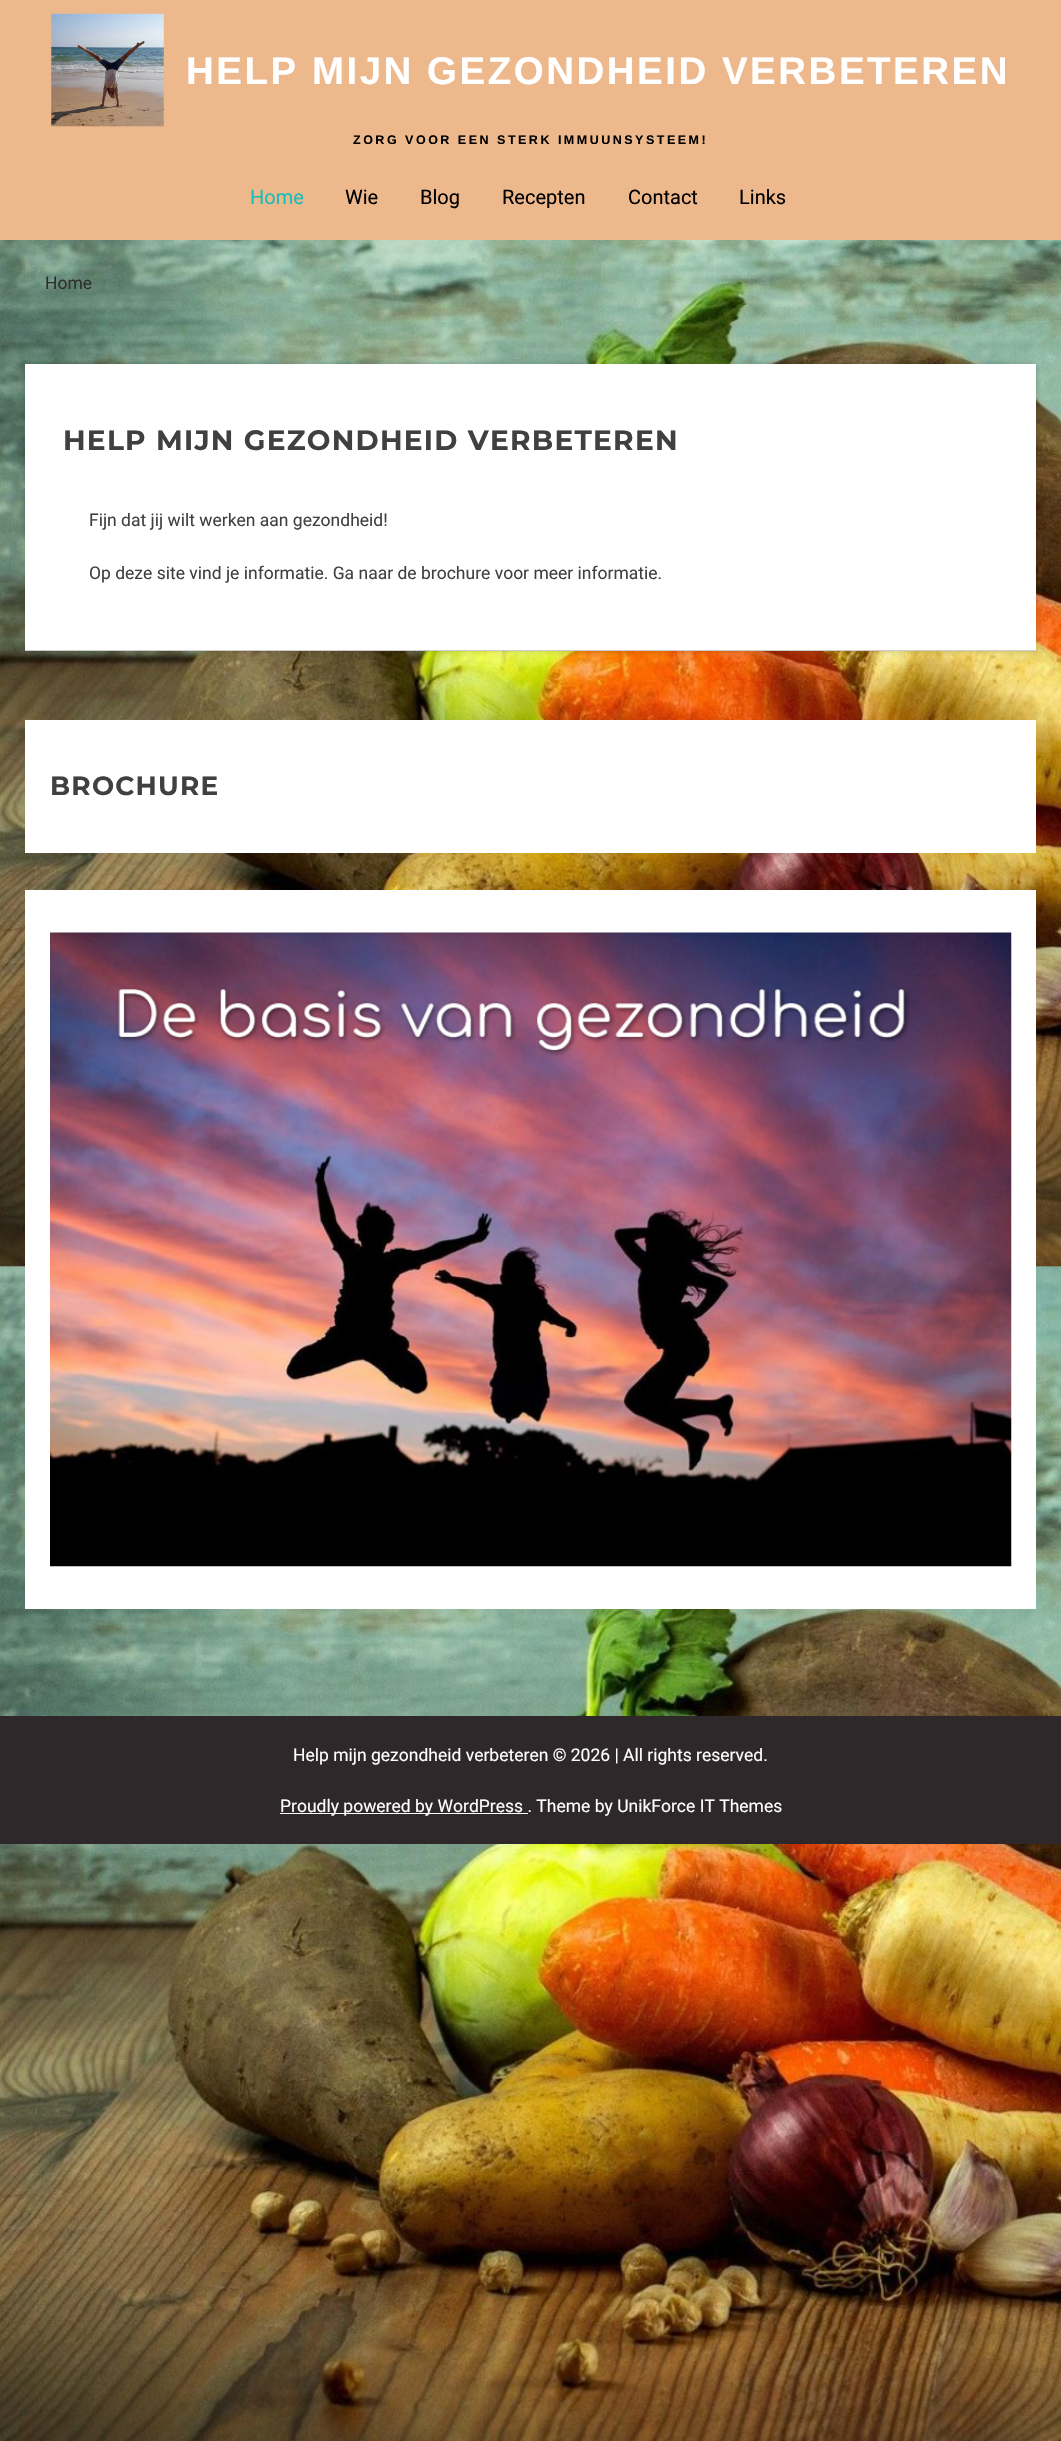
void draw(SkCanvas* canvas) {
    SkPaint paint;
    paint.setAntiAlias(true);
    auto spacedText = [&](const char* s, float x, float y, const SkFont& font, const SkPaint& ink, float letter, float word) {
        std::vector<SkGlyphID> glyphs(font.countText(s, strlen(s), SkTextEncoding::kUTF8));
        std::vector<float> xs(glyphs.size());
        font.textToGlyphs(s, strlen(s), SkTextEncoding::kUTF8, glyphs);
        font.getXPos(glyphs, xs, x);
        float extra = 0;
        for (size_t i = 0; i < glyphs.size(); i++) {
            xs[i] += extra;
            extra += letter + word * (glyphs[i] == font.unicharToGlyph(' '));
        }
        canvas->drawTextBlob(SkTextBlob::MakeFromPosHGlyphs(glyphs, xs, y, font), 0, 0, ink);
    };
    canvas->clear(0xFFFFFFFF);
    canvas->drawImageRect(SkImages::DeferredFromEncodedData(SkData::MakeFromFileName("img1.png")), SkRect::MakeXYWH(0, 240, 1061, 2201), SkSamplingOptions());
    paint.setColor(0xFFEDB88B);
    canvas->drawRect(SkRect::MakeXYWH(0, 0, 1061, 240), paint);
    canvas->drawImageRect(SkImages::DeferredFromEncodedData(SkData::MakeFromFileName("img2.png")), SkRect::MakeXYWH(51, 13, 113, 114), SkSamplingOptions());
    SkFont font1(fontMgr->matchFamilyStyle("Liberation Sans", SkFontStyle::Bold()), 38.5f);
    font1.setSubpixel(true);
    paint.setColor(0xFFFFFFFF);
    spacedText("HELP MIJN GEZONDHEID VERBETEREN", 186, 84, font1, paint, 2.5f, 0);
    SkFont font2(fontMgr->matchFamilyStyle("Liberation Sans", SkFontStyle::Bold()), 12.5f);
    font2.setSubpixel(true);
    paint.setColor(0xFF000000);
    spacedText("ZORG VOOR EEN STERK IMMUUNSYSTEEM!", 353, 144, font2, paint, 2.5f, 0);
    SkFont font3(fontMgr->matchFamilyStyle("Roboto", SkFontStyle::Normal()), 20);
    font3.setSubpixel(true);
    paint.setColor(0xFF17BEBB);
    canvas->drawString("Home", 250, 204, font3, paint);
    paint.setColor(0xFF000000);
    canvas->drawString("Wie", 345, 204, font3, paint);
    canvas->drawString("Blog", 420, 204, font3, paint);
    canvas->drawString("Recepten", 502, 204, font3, paint);
    canvas->drawString("Contact", 628, 204, font3, paint);
    canvas->drawString("Links", 739, 204, font3, paint);
    SkFont font4(fontMgr->matchFamilyStyle("Roboto", SkFontStyle::Normal()), 17.5f);
    font4.setSubpixel(true);
    paint.setColor(0xFF2F2F2F);
    canvas->drawString("Home", 45, 289, font4, paint);
    paint.setColor(0x33000000);
    paint.setMaskFilter(SkMaskFilter::MakeBlur(kNormal_SkBlurStyle, 3));
    canvas->drawRect(SkRect::MakeXYWH(25, 364, 1011, 287), paint);
    paint.setMaskFilter(nullptr);
    paint.setColor(0xFFFFFFFF);
    canvas->drawRect(SkRect::MakeXYWH(25, 364, 1011, 286), paint);
    paint.setColor(0xFFCCCCCC);
    canvas->drawRect(SkRect::MakeXYWH(25, 650, 1011, 1), paint);
    SkFont font5(fontMgr->matchFamilyStyle("Montserrat", SkFontStyle::Bold()), 28);
    font5.setSubpixel(true);
    paint.setColor(0xFF404040);
    spacedText("HELP MIJN GEZONDHEID VERBETEREN", 63, 450, font5, paint, 1.25f, 0);
    canvas->drawString("Fijn dat jij wilt werken aan gezondheid!", 89, 526, font4, paint);
    canvas->drawString("Op deze site vind je informatie. Ga naar de brochure voor meer informatie.", 89, 579, font4, paint);
    paint.setColor(0xFFFFFFFF);
    canvas->drawRect(SkRect::MakeXYWH(25, 720, 1011, 133), paint);
    SkFont font6(fontMgr->matchFamilyStyle("Montserrat", SkFontStyle::Bold()), 26.25f);
    font6.setSubpixel(true);
    paint.setColor(0xFF404040);
    spacedText("BROCHURE", 50, 795, font6, paint, 1.25f, 0);
    paint.setColor(0xFFFFFFFF);
    canvas->drawRect(SkRect::MakeXYWH(25, 890, 1011, 719), paint);
    canvas->drawImageRect(SkImages::DeferredFromEncodedData(SkData::MakeFromFileName("img3.png")), SkRect::MakeXYWH(50, 932, 962, 635), SkSamplingOptions());
    paint.setColor(0xFF2E282A);
    canvas->drawRect(SkRect::MakeXYWH(0, 1716, 1061, 128), paint);
    paint.setColor(0xFFFFFFFF);
    canvas->drawString("Help mijn gezondheid verbeteren © 2026 | All rights reserved.", 293, 1761, font4, paint);
    canvas->drawRect(SkRect::MakeXYWH(280, 1813, 248, 1), paint);
    canvas->drawString("Proudly powered by WordPress . Theme by UnikForce IT Themes", 280, 1812, font4, paint);
}
